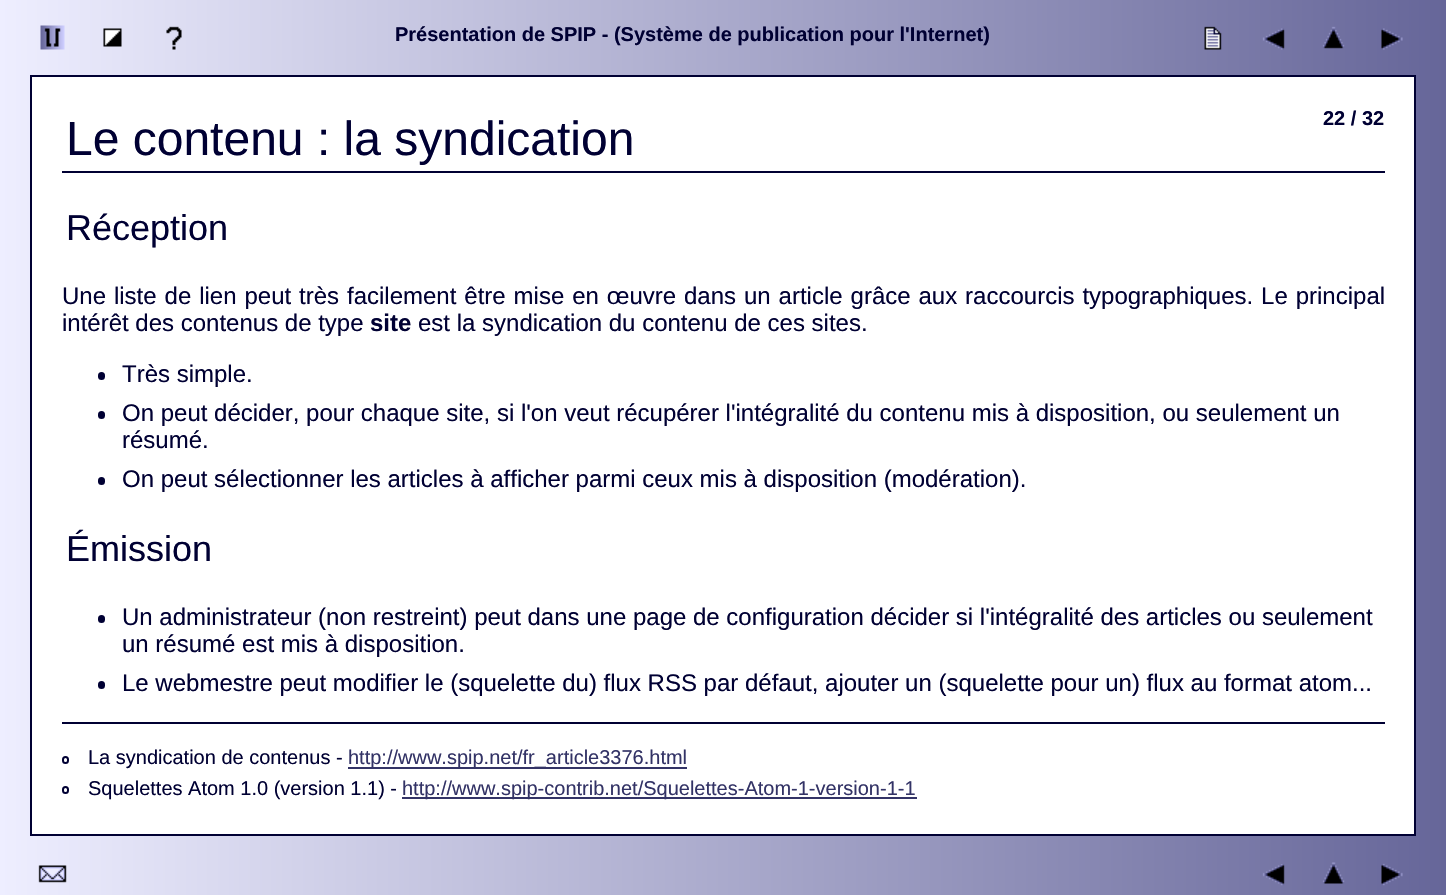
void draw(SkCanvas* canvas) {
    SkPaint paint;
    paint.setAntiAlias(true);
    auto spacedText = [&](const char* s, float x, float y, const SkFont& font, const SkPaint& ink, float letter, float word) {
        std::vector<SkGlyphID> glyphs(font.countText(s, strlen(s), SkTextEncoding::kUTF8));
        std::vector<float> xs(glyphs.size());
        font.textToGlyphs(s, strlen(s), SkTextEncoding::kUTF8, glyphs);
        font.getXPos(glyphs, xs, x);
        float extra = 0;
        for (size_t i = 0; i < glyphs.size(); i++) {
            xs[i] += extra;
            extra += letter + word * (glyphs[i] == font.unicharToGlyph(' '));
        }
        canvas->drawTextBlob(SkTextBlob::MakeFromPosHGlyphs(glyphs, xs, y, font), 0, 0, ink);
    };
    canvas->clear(0xFFFFFFFF);
    {
        const SkColor colors[] = {0xFFEEEEFF, 0xFF666699};
        const float stops[] = {0, 1};
        const SkPoint ends[] = {{0, 458}, {1446, 458}};
        paint.setShader(SkGradientShader::MakeLinear(ends, colors, stops, 2, SkTileMode::kClamp));
        paint.setAlpha(255);
    }
    canvas->drawRect(SkRect::MakeXYWH(0, 0, 1446, 895), paint);
    canvas->drawImageRect(SkImages::DeferredFromEncodedData(SkData::MakeFromFileName("img1.png")), SkRect::MakeXYWH(40, 25, 25, 25), SkSamplingOptions());
    canvas->drawImageRect(SkImages::DeferredFromEncodedData(SkData::MakeFromFileName("img2.png")), SkRect::MakeXYWH(103, 28, 19, 19), SkSamplingOptions());
    canvas->drawImageRect(SkImages::DeferredFromEncodedData(SkData::MakeFromFileName("img3.png")), SkRect::MakeXYWH(166, 26, 16, 24), SkSamplingOptions());
    SkFont font1(fontMgr->matchFamilyStyle("Liberation Sans", SkFontStyle::Bold()), 20);
    font1.setSubpixel(true);
    paint.setShader(nullptr);
    paint.setColor(0xFF000033);
    canvas->drawString("Présentation de SPIP - (Système de publication pour l'Internet)", 395, 41, font1, paint);
    canvas->drawImageRect(SkImages::DeferredFromEncodedData(SkData::MakeFromFileName("img4.png")), SkRect::MakeXYWH(1204, 26, 18, 24), SkSamplingOptions());
    canvas->drawImageRect(SkImages::DeferredFromEncodedData(SkData::MakeFromFileName("img5.png")), SkRect::MakeXYWH(1262, 28, 23, 22), SkSamplingOptions());
    canvas->drawImageRect(SkImages::DeferredFromEncodedData(SkData::MakeFromFileName("img6.png")), SkRect::MakeXYWH(1322, 26, 23, 23), SkSamplingOptions());
    canvas->drawImageRect(SkImages::DeferredFromEncodedData(SkData::MakeFromFileName("img7.png")), SkRect::MakeXYWH(1381, 28, 22, 22), SkSamplingOptions());
    paint.setColor(0xFFFFFFFF);
    canvas->drawRect(SkRect::MakeXYWH(31, 76, 1384, 759), paint);
    paint.setStyle(SkPaint::kStroke_Style);
    paint.setStrokeWidth(2);
    paint.setColor(0xFF000033);
    canvas->drawRect(SkRect::MakeXYWH(31, 76, 1384, 759), paint);
    paint.setStyle(SkPaint::kFill_Style);
    canvas->drawString("22 / 32", 1323, 125, font1, paint);
    canvas->drawRect(SkRect::MakeXYWH(62, 171, 1323, 2), paint);
    SkFont font2(fontMgr->matchFamilyStyle("Liberation Sans", SkFontStyle::Normal()), 48);
    font2.setSubpixel(true);
    canvas->drawString("Le contenu : la syndication", 66, 155, font2, paint);
    SkFont font3(fontMgr->matchFamilyStyle("Liberation Sans", SkFontStyle::Normal()), 36);
    font3.setSubpixel(true);
    canvas->drawString("Réception", 66, 240, font3, paint);
    SkFont font4(fontMgr->matchFamilyStyle("Liberation Sans", SkFontStyle::Normal()), 24);
    font4.setSubpixel(true);
    spacedText("Une liste de lien peut très facilement être mise en œuvre dans un article grâce aux raccourcis typographiques. Le principal", 62, 304, font4, paint, 0, 1.25f);
    canvas->drawString("intérêt des contenus de type", 62, 331, font4, paint);
    SkFont font5(fontMgr->matchFamilyStyle("Liberation Sans", SkFontStyle::Bold()), 24);
    font5.setSubpixel(true);
    canvas->drawString("site", 370, 331, font5, paint);
    canvas->drawString("est la syndication du contenu de ces sites.", 418, 331, font4, paint);
    canvas->drawRoundRect(SkRect::MakeXYWH(98, 372, 7, 8), 3.5f, 3.5f, paint);
    canvas->drawString("Très simple.", 122, 382, font4, paint);
    canvas->drawRoundRect(SkRect::MakeXYWH(98, 411, 7, 8), 3.5f, 3.5f, paint);
    canvas->drawString("On peut décider, pour chaque site, si l'on veut récupérer l'intégralité du contenu mis à disposition, ou seulement un", 122, 421, font4, paint);
    canvas->drawString("résumé.", 122, 448, font4, paint);
    canvas->drawRoundRect(SkRect::MakeXYWH(98, 477, 7, 8), 3.5f, 3.5f, paint);
    canvas->drawString("On peut sélectionner les articles à afficher parmi ceux mis à disposition (modération).", 122, 487, font4, paint);
    canvas->drawString("Émission", 66, 561, font3, paint);
    canvas->drawRoundRect(SkRect::MakeXYWH(98, 615, 7, 8), 3.5f, 3.5f, paint);
    canvas->drawString("Un administrateur (non restreint) peut dans une page de configuration décider si l'intégralité des articles ou seulement", 122, 625, font4, paint);
    canvas->drawString("un résumé est mis à disposition.", 122, 652, font4, paint);
    canvas->drawRoundRect(SkRect::MakeXYWH(98, 681, 7, 8), 3.5f, 3.5f, paint);
    canvas->drawString("Le webmestre peut modifier le (squelette du) flux RSS par défaut, ajouter un (squelette pour un) flux au format atom...", 122, 691, font4, paint);
    canvas->drawRect(SkRect::MakeXYWH(62, 722, 1323, 2), paint);
    paint.setStyle(SkPaint::kStroke_Style);
    canvas->drawRoundRect(SkRect::MakeXYWH(63, 757, 5, 6), 2.5f, 2.5f, paint);
    SkFont font6(fontMgr->matchFamilyStyle("Liberation Sans", SkFontStyle::Normal()), 20);
    font6.setSubpixel(true);
    paint.setStyle(SkPaint::kFill_Style);
    canvas->drawString("La syndication de contenus -", 88, 764, font6, paint);
    paint.setColor(0xFF333366);
    canvas->drawRect(SkRect::MakeXYWH(348, 767, 339, 2), paint);
    canvas->drawString("http://www.spip.net/fr_article3376.html", 348, 764, font6, paint);
    paint.setStyle(SkPaint::kStroke_Style);
    paint.setColor(0xFF000033);
    canvas->drawRoundRect(SkRect::MakeXYWH(63, 787, 5, 6), 2.5f, 2.5f, paint);
    paint.setStyle(SkPaint::kFill_Style);
    canvas->drawString("Squelettes Atom 1.0 (version 1.1) -", 88, 795, font6, paint);
    paint.setColor(0xFF333366);
    canvas->drawRect(SkRect::MakeXYWH(402, 797, 515, 2), paint);
    canvas->drawString("http://www.spip-contrib.net/Squelettes-Atom-1-version-1-1", 402, 795, font6, paint);
    canvas->drawImageRect(SkImages::DeferredFromEncodedData(SkData::MakeFromFileName("img8.png")), SkRect::MakeXYWH(38, 865, 29, 18), SkSamplingOptions());
    canvas->drawImageRect(SkImages::DeferredFromEncodedData(SkData::MakeFromFileName("img9.png")), SkRect::MakeXYWH(1262, 864, 23, 22), SkSamplingOptions());
    canvas->drawImageRect(SkImages::DeferredFromEncodedData(SkData::MakeFromFileName("img10.png")), SkRect::MakeXYWH(1322, 862, 23, 22), SkSamplingOptions());
    canvas->drawImageRect(SkImages::DeferredFromEncodedData(SkData::MakeFromFileName("img11.png")), SkRect::MakeXYWH(1381, 863, 22, 23), SkSamplingOptions());
}
